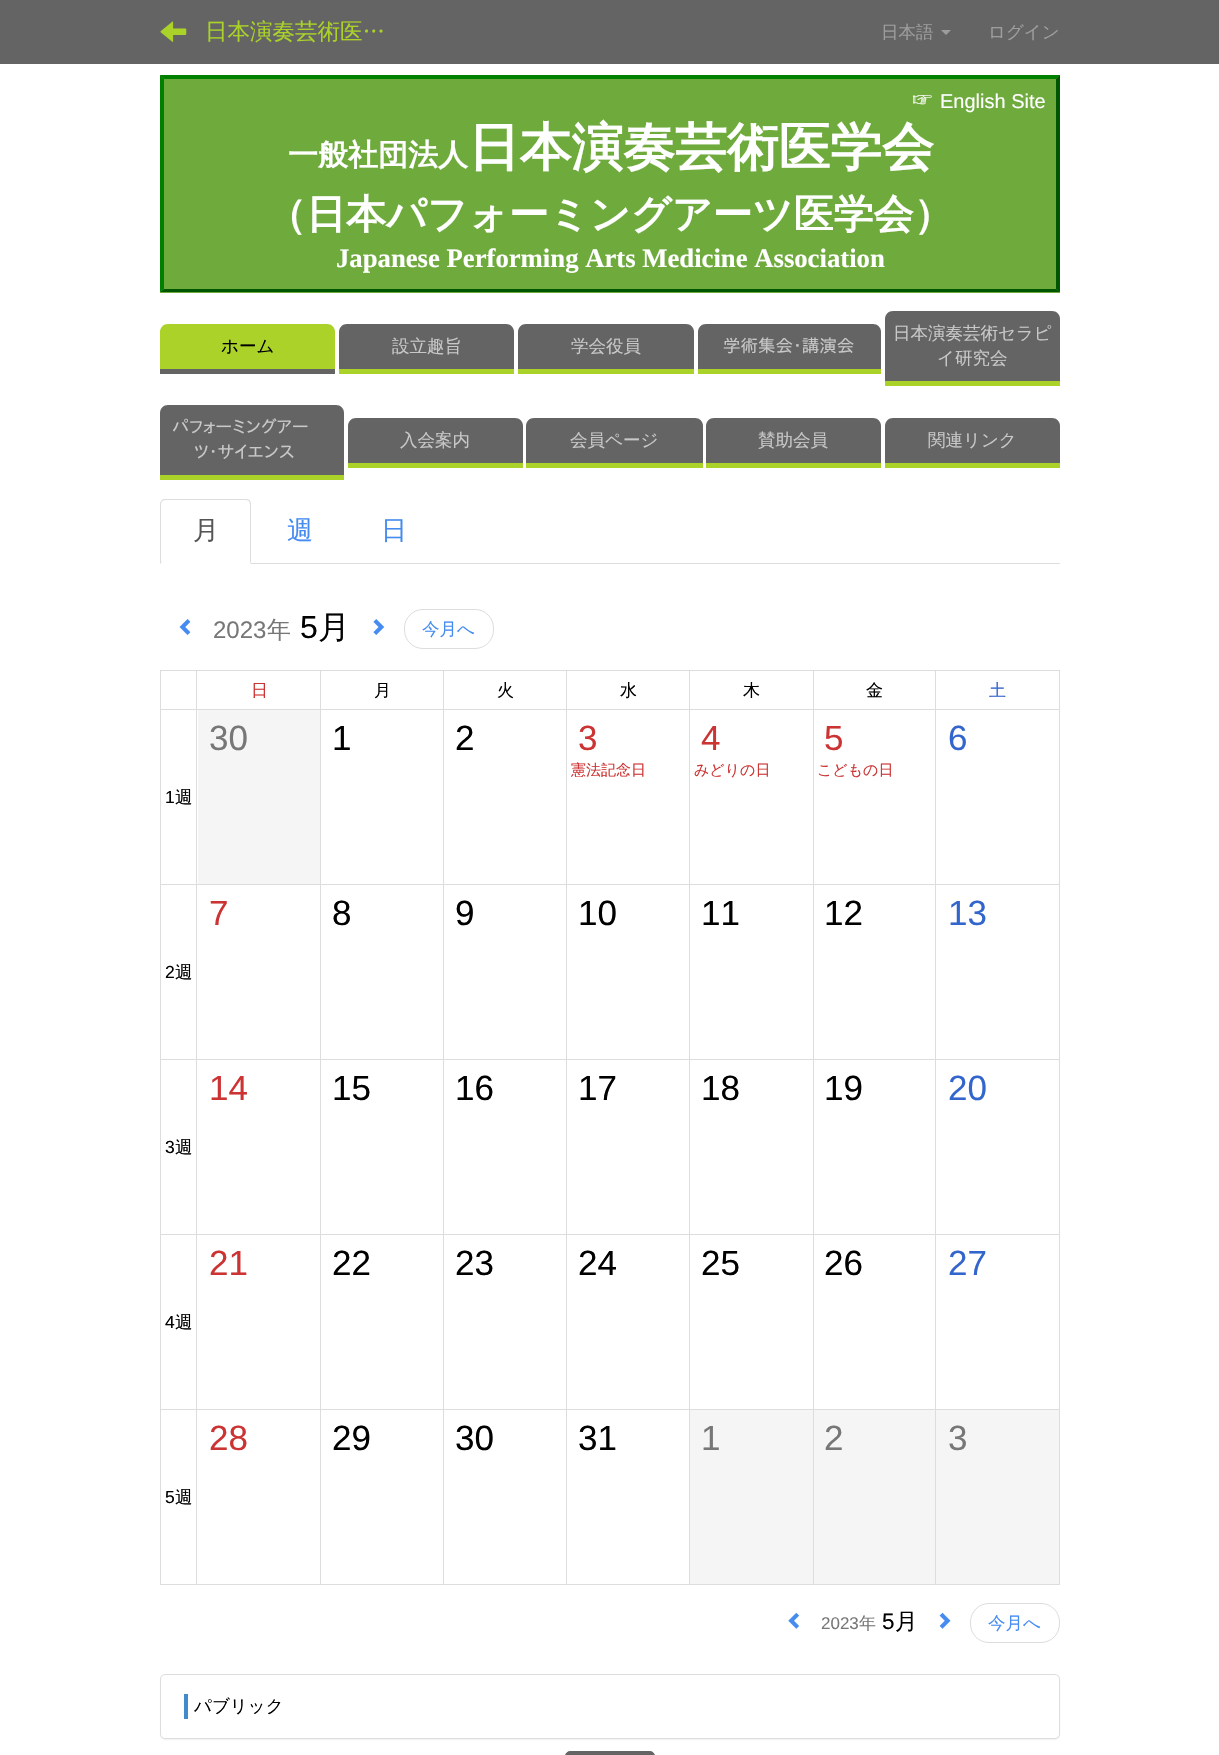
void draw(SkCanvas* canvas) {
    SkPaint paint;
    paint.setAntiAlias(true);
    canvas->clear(0xFFFFFFFF);
    paint.setColor(0xFF646464);
    canvas->drawRect(SkRect::MakeXYWH(0, 0, 1219, 64), paint);
    canvas->drawImageRect(SkImages::DeferredFromEncodedData(SkData::MakeFromFileName("img1.png")), SkRect::MakeXYWH(160, 21, 27, 21), SkSamplingOptions());
    SkFont font1(fontMgr->matchFamilyStyle("WenQuanYi Zen Hei", SkFontStyle(500, SkFontStyle::kNormal_Width, SkFontStyle::kUpright_Slant)), 22.5f);
    font1.setSubpixel(true);
    paint.setColor(0xFFAAD228);
    canvas->drawString("日本演奏芸術医…", 205, 39, font1, paint);
    SkFont font2(fontMgr->matchFamilyStyle("WenQuanYi Zen Hei", SkFontStyle(500, SkFontStyle::kNormal_Width, SkFontStyle::kUpright_Slant)), 17.5f);
    font2.setSubpixel(true);
    paint.setColor(0xFF9D9D9D);
    canvas->drawString("日本語", 881, 38, font2, paint);
    canvas->drawPath(SkPathBuilder().moveTo(941, 30).lineTo(951, 30).lineTo(946, 35).close().detach(), paint);
    canvas->drawString("ログイン", 988, 38, font2, paint);
    paint.setColor(0xFF6EAA3C);
    canvas->drawRect(SkRect::MakeXYWH(160, 75, 900, 218), paint);
    paint.setColor(0xFF008000);
    canvas->drawPath(SkPathBuilder().moveTo(160, 75).lineTo(1060, 75).lineTo(1056, 79).lineTo(164, 79).close().detach(), paint);
    paint.setColor(0xFF005500);
    canvas->drawPath(SkPathBuilder().moveTo(1060, 75).lineTo(1060, 292).lineTo(1056, 289).lineTo(1056, 79).close().detach(), paint);
    canvas->drawPath(SkPathBuilder().moveTo(1060, 292).lineTo(160, 292).lineTo(164, 289).lineTo(1056, 289).close().detach(), paint);
    paint.setColor(0xFF008000);
    canvas->drawPath(SkPathBuilder().moveTo(160, 292).lineTo(160, 75).lineTo(164, 79).lineTo(164, 289).close().detach(), paint);
    SkFont font3(fontMgr->matchFamilyStyle("WenQuanYi Zen Hei", SkFontStyle(500, SkFontStyle::kNormal_Width, SkFontStyle::kUpright_Slant)), 23);
    font3.setSubpixel(true);
    paint.setColor(0xFFFFFFFF);
    canvas->drawString("☞", 911, 108, font3, paint);
    SkFont font4(fontMgr->matchFamilyStyle("Liberation Sans", SkFontStyle::Normal()), 20);
    font4.setSubpixel(true);
    canvas->drawString("English Site", 940, 108, font4, paint);
    SkFont font5(fontMgr->matchFamilyStyle("WenQuanYi Zen Hei", SkFontStyle::Bold()), 30);
    font5.setSubpixel(true);
    canvas->drawString("一般社団法人", 288, 165, font5, paint);
    SkFont font6(fontMgr->matchFamilyStyle("WenQuanYi Zen Hei", SkFontStyle::Bold()), 51.75f);
    font6.setSubpixel(true);
    canvas->drawString("日本演奏芸術医学会", 468, 165, font6, paint);
    SkFont font7(fontMgr->matchFamilyStyle("WenQuanYi Zen Hei", SkFontStyle::Bold()), 40);
    font7.setSubpixel(true);
    canvas->drawString("（日本パフォーミングアーツ医学会）", 266, 228, font7, paint);
    SkFont font8(fontMgr->matchFamilyStyle("Liberation Serif", SkFontStyle::Bold()), 26.7f);
    font8.setSubpixel(true);
    canvas->drawString("Japanese Performing Arts Medicine Association", 336, 267, font8, paint);
    paint.setColor(0xFFAAD228);
    canvas->drawPath(SkPathBuilder().moveTo(168, 324).lineTo(327, 324).cubicTo(331.5f, 324, 335, 327.5f, 335, 332).lineTo(335, 374).lineTo(160, 374).lineTo(160, 332).cubicTo(160, 327.5f, 163.5f, 324, 168, 324).close().detach(), paint);
    paint.setColor(0xFF646464);
    canvas->drawRect(SkRect::MakeXYWH(160, 369, 175, 5), paint);
    paint.setColor(0xFF000000);
    canvas->drawString("ホーム", 221, 352, font2, paint);
    paint.setColor(0xFF646464);
    canvas->drawPath(SkPathBuilder().moveTo(347, 324).lineTo(506, 324).cubicTo(510.5f, 324, 514, 327.5f, 514, 332).lineTo(514, 374).lineTo(339, 374).lineTo(339, 332).cubicTo(339, 327.5f, 342.5f, 324, 347, 324).close().detach(), paint);
    paint.setColor(0xFFAAD228);
    canvas->drawRect(SkRect::MakeXYWH(339, 369, 175, 5), paint);
    paint.setColor(0xFFC8C8C8);
    canvas->drawString("設立趣旨", 392, 352, font2, paint);
    paint.setColor(0xFF646464);
    canvas->drawPath(SkPathBuilder().moveTo(526, 324).lineTo(686, 324).cubicTo(690.5f, 324, 694, 327.5f, 694, 332).lineTo(694, 374).lineTo(518, 374).lineTo(518, 332).cubicTo(518, 327.5f, 521.5f, 324, 526, 324).close().detach(), paint);
    paint.setColor(0xFFAAD228);
    canvas->drawRect(SkRect::MakeXYWH(518, 369, 176, 5), paint);
    paint.setColor(0xFFC8C8C8);
    canvas->drawString("学会役員", 571, 352, font2, paint);
    paint.setColor(0xFF646464);
    canvas->drawPath(SkPathBuilder().moveTo(706, 324).lineTo(873, 324).cubicTo(877.5f, 324, 881, 327.5f, 881, 332).lineTo(881, 374).lineTo(698, 374).lineTo(698, 332).cubicTo(698, 327.5f, 701.5f, 324, 706, 324).close().detach(), paint);
    paint.setColor(0xFFAAD228);
    canvas->drawRect(SkRect::MakeXYWH(698, 369, 183, 5), paint);
    SkFont font9(fontMgr->matchFamilyStyle("IPAPGothic", SkFontStyle::Normal()), 17.5f);
    font9.setSubpixel(true);
    paint.setColor(0xFFC8C8C8);
    canvas->drawString("学術集会･講演会", 723, 352, font9, paint);
    paint.setColor(0xFF646464);
    canvas->drawPath(SkPathBuilder().moveTo(893, 311).lineTo(1052, 311).cubicTo(1056.5f, 311, 1060, 314.5f, 1060, 319).lineTo(1060, 386).lineTo(885, 386).lineTo(885, 319).cubicTo(885, 314.5f, 888.5f, 311, 893, 311).close().detach(), paint);
    paint.setColor(0xFFAAD228);
    canvas->drawRect(SkRect::MakeXYWH(885, 381, 175, 5), paint);
    paint.setColor(0xFFC8C8C8);
    canvas->drawString("日本演奏芸術セラピ", 893, 339, font2, paint);
    canvas->drawString("イ研究会", 937, 364, font2, paint);
    paint.setColor(0xFF646464);
    canvas->drawPath(SkPathBuilder().moveTo(168, 405).lineTo(336, 405).cubicTo(340.5f, 405, 344, 408.5f, 344, 413).lineTo(344, 480).lineTo(160, 480).lineTo(160, 413).cubicTo(160, 408.5f, 163.5f, 405, 168, 405).close().detach(), paint);
    paint.setColor(0xFFAAD228);
    canvas->drawRect(SkRect::MakeXYWH(160, 475, 184, 5), paint);
    paint.setColor(0xFFC8C8C8);
    canvas->drawString("パフォーミングアー", 172, 433, font9, paint);
    canvas->drawString("ツ･サイエンス", 194, 458, font9, paint);
    paint.setColor(0xFF646464);
    canvas->drawPath(SkPathBuilder().moveTo(356, 418).lineTo(515, 418).cubicTo(519.5f, 418, 523, 421.5f, 523, 426).lineTo(523, 468).lineTo(348, 468).lineTo(348, 426).cubicTo(348, 421.5f, 351.5f, 418, 356, 418).close().detach(), paint);
    paint.setColor(0xFFAAD228);
    canvas->drawRect(SkRect::MakeXYWH(348, 463, 175, 5), paint);
    paint.setColor(0xFFC8C8C8);
    canvas->drawString("入会案内", 400, 446, font2, paint);
    paint.setColor(0xFF646464);
    canvas->drawPath(SkPathBuilder().moveTo(534, 418).lineTo(695, 418).cubicTo(699.5f, 418, 703, 421.5f, 703, 426).lineTo(703, 468).lineTo(526, 468).lineTo(526, 426).cubicTo(526, 421.5f, 529.5f, 418, 534, 418).close().detach(), paint);
    paint.setColor(0xFFAAD228);
    canvas->drawRect(SkRect::MakeXYWH(526, 463, 177, 5), paint);
    paint.setColor(0xFFC8C8C8);
    canvas->drawString("会員ページ", 570, 446, font2, paint);
    paint.setColor(0xFF646464);
    canvas->drawPath(SkPathBuilder().moveTo(714, 418).lineTo(873, 418).cubicTo(877.5f, 418, 881, 421.5f, 881, 426).lineTo(881, 468).lineTo(706, 468).lineTo(706, 426).cubicTo(706, 421.5f, 709.5f, 418, 714, 418).close().detach(), paint);
    paint.setColor(0xFFAAD228);
    canvas->drawRect(SkRect::MakeXYWH(706, 463, 175, 5), paint);
    paint.setColor(0xFFC8C8C8);
    canvas->drawString("賛助会員", 758, 446, font2, paint);
    paint.setColor(0xFF646464);
    canvas->drawPath(SkPathBuilder().moveTo(893, 418).lineTo(1052, 418).cubicTo(1056.5f, 418, 1060, 421.5f, 1060, 426).lineTo(1060, 468).lineTo(885, 468).lineTo(885, 426).cubicTo(885, 421.5f, 888.5f, 418, 893, 418).close().detach(), paint);
    paint.setColor(0xFFAAD228);
    canvas->drawRect(SkRect::MakeXYWH(885, 463, 175, 5), paint);
    paint.setColor(0xFFC8C8C8);
    canvas->drawString("関連リンク", 928, 446, font2, paint);
    paint.setColor(0xFFDDDDDD);
    canvas->drawRect(SkRect::MakeXYWH(251, 563, 809, 1), paint);
    canvas->drawPath(SkPathBuilder().moveTo(165, 499).cubicTo(164, 499, 162, 499, 162, 500).lineTo(162, 501).lineTo(165, 500).lineTo(246, 500).lineTo(249, 501).lineTo(250, 500).cubicTo(249, 500, 248, 499, 246, 499).close().detach(), paint);
    canvas->drawPath(SkPathBuilder().moveTo(251, 564).lineTo(251, 504).cubicTo(251, 502, 250, 501, 250, 500).lineTo(249, 501).lineTo(250, 504).lineTo(250, 562).close().detach(), paint);
    canvas->drawPath(SkPathBuilder().moveTo(160, 564).lineTo(162, 562).lineTo(161, 562).lineTo(161, 504).lineTo(162, 501).lineTo(162, 500).cubicTo(161, 501, 160, 502, 160, 504).close().detach(), paint);
    SkFont font10(fontMgr->matchFamilyStyle("WenQuanYi Zen Hei", SkFontStyle(500, SkFontStyle::kNormal_Width, SkFontStyle::kUpright_Slant)), 26);
    font10.setSubpixel(true);
    paint.setColor(0xFF555555);
    canvas->drawString("月", 193, 539, font10, paint);
    paint.setColor(0xFF468CF0);
    canvas->drawString("週", 287, 539, font10, paint);
    canvas->drawString("日", 381, 539, font10, paint);
    canvas->drawImageRect(SkImages::DeferredFromEncodedData(SkData::MakeFromFileName("img2.png")), SkRect::MakeXYWH(179, 619, 12, 16), SkSamplingOptions());
    SkFont font11(fontMgr->matchFamilyStyle("Liberation Sans", SkFontStyle::Normal()), 24);
    font11.setSubpixel(true);
    paint.setColor(0xFF777777);
    canvas->drawString("2023", 213, 638, font11, paint);
    SkFont font12(fontMgr->matchFamilyStyle("WenQuanYi Zen Hei", SkFontStyle(500, SkFontStyle::kNormal_Width, SkFontStyle::kUpright_Slant)), 24);
    font12.setSubpixel(true);
    canvas->drawString("年", 267, 638, font12, paint);
    SkFont font13(fontMgr->matchFamilyStyle("Liberation Sans", SkFontStyle::Normal()), 32);
    font13.setSubpixel(true);
    paint.setColor(0xFF000000);
    canvas->drawString("5", 300, 638, font13, paint);
    SkFont font14(fontMgr->matchFamilyStyle("WenQuanYi Zen Hei", SkFontStyle(500, SkFontStyle::kNormal_Width, SkFontStyle::kUpright_Slant)), 32);
    font14.setSubpixel(true);
    canvas->drawString("月", 318, 638, font14, paint);
    canvas->drawImageRect(SkImages::DeferredFromEncodedData(SkData::MakeFromFileName("img3.png")), SkRect::MakeXYWH(373, 619, 12, 16), SkSamplingOptions());
    paint.setStyle(SkPaint::kStroke_Style);
    paint.setStrokeWidth(1);
    paint.setColor(0xFFDDDDDD);
    canvas->drawRoundRect(SkRect::MakeXYWH(404.5f, 609.5f, 89, 39), 18.5f, 18.5f, paint);
    paint.setStyle(SkPaint::kFill_Style);
    paint.setColor(0xFF468CF0);
    canvas->drawString("今月へ", 422, 635, font2, paint);
    paint.setColor(0xFFDDDDDD);
    canvas->drawRect(SkRect::MakeXYWH(935, 670, 125, 1), paint);
    canvas->drawRect(SkRect::MakeXYWH(935, 709, 125, 1), paint);
    canvas->drawRect(SkRect::MakeXYWH(935, 884, 125, 1), paint);
    canvas->drawRect(SkRect::MakeXYWH(935, 1059, 125, 1), paint);
    canvas->drawRect(SkRect::MakeXYWH(935, 1234, 125, 1), paint);
    canvas->drawRect(SkRect::MakeXYWH(935, 1409, 125, 1), paint);
    canvas->drawRect(SkRect::MakeXYWH(1059, 1409, 1, 176), paint);
    canvas->drawRect(SkRect::MakeXYWH(935, 1584, 125, 1), paint);
    canvas->drawRect(SkRect::MakeXYWH(935, 1409, 1, 176), paint);
    canvas->drawRect(SkRect::MakeXYWH(813, 1409, 123, 1), paint);
    canvas->drawRect(SkRect::MakeXYWH(935, 1234, 1, 176), paint);
    canvas->drawRect(SkRect::MakeXYWH(813, 1234, 123, 1), paint);
    canvas->drawRect(SkRect::MakeXYWH(935, 1059, 1, 176), paint);
    canvas->drawRect(SkRect::MakeXYWH(813, 1059, 123, 1), paint);
    canvas->drawRect(SkRect::MakeXYWH(935, 884, 1, 176), paint);
    canvas->drawRect(SkRect::MakeXYWH(813, 884, 123, 1), paint);
    canvas->drawRect(SkRect::MakeXYWH(935, 709, 1, 176), paint);
    canvas->drawRect(SkRect::MakeXYWH(813, 709, 123, 1), paint);
    canvas->drawRect(SkRect::MakeXYWH(935, 670, 1, 40), paint);
    canvas->drawRect(SkRect::MakeXYWH(813, 670, 123, 1), paint);
    canvas->drawRect(SkRect::MakeXYWH(813, 1584, 123, 1), paint);
    canvas->drawRect(SkRect::MakeXYWH(813, 1409, 1, 176), paint);
    canvas->drawRect(SkRect::MakeXYWH(689, 1409, 125, 1), paint);
    canvas->drawRect(SkRect::MakeXYWH(813, 1234, 1, 176), paint);
    canvas->drawRect(SkRect::MakeXYWH(689, 1234, 125, 1), paint);
    canvas->drawRect(SkRect::MakeXYWH(813, 1059, 1, 176), paint);
    canvas->drawRect(SkRect::MakeXYWH(689, 1059, 125, 1), paint);
    canvas->drawRect(SkRect::MakeXYWH(813, 884, 1, 176), paint);
    canvas->drawRect(SkRect::MakeXYWH(689, 884, 125, 1), paint);
    canvas->drawRect(SkRect::MakeXYWH(813, 709, 1, 176), paint);
    canvas->drawRect(SkRect::MakeXYWH(689, 709, 125, 1), paint);
    canvas->drawRect(SkRect::MakeXYWH(813, 670, 1, 40), paint);
    canvas->drawRect(SkRect::MakeXYWH(689, 670, 125, 1), paint);
    canvas->drawRect(SkRect::MakeXYWH(689, 1584, 125, 1), paint);
    canvas->drawRect(SkRect::MakeXYWH(689, 1409, 1, 176), paint);
    canvas->drawRect(SkRect::MakeXYWH(566, 1409, 124, 1), paint);
    canvas->drawRect(SkRect::MakeXYWH(689, 1234, 1, 176), paint);
    canvas->drawRect(SkRect::MakeXYWH(566, 1234, 124, 1), paint);
    canvas->drawRect(SkRect::MakeXYWH(689, 1059, 1, 176), paint);
    canvas->drawRect(SkRect::MakeXYWH(566, 1059, 124, 1), paint);
    canvas->drawRect(SkRect::MakeXYWH(689, 884, 1, 176), paint);
    canvas->drawRect(SkRect::MakeXYWH(566, 884, 124, 1), paint);
    canvas->drawRect(SkRect::MakeXYWH(689, 709, 1, 176), paint);
    canvas->drawRect(SkRect::MakeXYWH(566, 709, 124, 1), paint);
    canvas->drawRect(SkRect::MakeXYWH(689, 670, 1, 40), paint);
    canvas->drawRect(SkRect::MakeXYWH(566, 670, 124, 1), paint);
    canvas->drawRect(SkRect::MakeXYWH(566, 1584, 124, 1), paint);
    canvas->drawRect(SkRect::MakeXYWH(566, 1409, 1, 176), paint);
    canvas->drawRect(SkRect::MakeXYWH(443, 1409, 125, 1), paint);
    canvas->drawRect(SkRect::MakeXYWH(566, 1234, 1, 176), paint);
    canvas->drawRect(SkRect::MakeXYWH(443, 1234, 125, 1), paint);
    canvas->drawRect(SkRect::MakeXYWH(566, 1059, 1, 176), paint);
    canvas->drawRect(SkRect::MakeXYWH(443, 1059, 125, 1), paint);
    canvas->drawRect(SkRect::MakeXYWH(566, 884, 1, 176), paint);
    canvas->drawRect(SkRect::MakeXYWH(443, 884, 125, 1), paint);
    canvas->drawRect(SkRect::MakeXYWH(566, 709, 1, 176), paint);
    canvas->drawRect(SkRect::MakeXYWH(443, 709, 125, 1), paint);
    canvas->drawRect(SkRect::MakeXYWH(566, 670, 1, 40), paint);
    canvas->drawRect(SkRect::MakeXYWH(443, 670, 125, 1), paint);
    canvas->drawRect(SkRect::MakeXYWH(443, 1584, 125, 1), paint);
    canvas->drawRect(SkRect::MakeXYWH(443, 1409, 1, 176), paint);
    canvas->drawRect(SkRect::MakeXYWH(320, 1409, 124, 1), paint);
    canvas->drawRect(SkRect::MakeXYWH(443, 1234, 1, 176), paint);
    canvas->drawRect(SkRect::MakeXYWH(320, 1234, 124, 1), paint);
    canvas->drawRect(SkRect::MakeXYWH(443, 1059, 1, 176), paint);
    canvas->drawRect(SkRect::MakeXYWH(320, 1059, 124, 1), paint);
    canvas->drawRect(SkRect::MakeXYWH(443, 884, 1, 176), paint);
    canvas->drawRect(SkRect::MakeXYWH(320, 884, 124, 1), paint);
    canvas->drawRect(SkRect::MakeXYWH(443, 709, 1, 176), paint);
    canvas->drawRect(SkRect::MakeXYWH(320, 709, 124, 1), paint);
    canvas->drawRect(SkRect::MakeXYWH(443, 670, 1, 40), paint);
    canvas->drawRect(SkRect::MakeXYWH(320, 670, 124, 1), paint);
    canvas->drawRect(SkRect::MakeXYWH(320, 1584, 124, 1), paint);
    canvas->drawRect(SkRect::MakeXYWH(320, 1409, 1, 176), paint);
    canvas->drawRect(SkRect::MakeXYWH(196, 1409, 125, 1), paint);
    canvas->drawRect(SkRect::MakeXYWH(320, 1234, 1, 176), paint);
    canvas->drawRect(SkRect::MakeXYWH(196, 1234, 125, 1), paint);
    canvas->drawRect(SkRect::MakeXYWH(320, 1059, 1, 176), paint);
    canvas->drawRect(SkRect::MakeXYWH(196, 1059, 125, 1), paint);
    canvas->drawRect(SkRect::MakeXYWH(320, 884, 1, 176), paint);
    canvas->drawRect(SkRect::MakeXYWH(196, 884, 125, 1), paint);
    canvas->drawRect(SkRect::MakeXYWH(320, 709, 1, 176), paint);
    canvas->drawRect(SkRect::MakeXYWH(196, 709, 125, 1), paint);
    canvas->drawRect(SkRect::MakeXYWH(320, 670, 1, 40), paint);
    canvas->drawRect(SkRect::MakeXYWH(196, 670, 125, 1), paint);
    canvas->drawRect(SkRect::MakeXYWH(196, 1584, 125, 1), paint);
    canvas->drawRect(SkRect::MakeXYWH(196, 1409, 1, 176), paint);
    canvas->drawRect(SkRect::MakeXYWH(160, 1409, 38, 1), paint);
    canvas->drawRect(SkRect::MakeXYWH(196, 1234, 1, 176), paint);
    canvas->drawRect(SkRect::MakeXYWH(160, 1234, 38, 1), paint);
    canvas->drawRect(SkRect::MakeXYWH(196, 1059, 1, 176), paint);
    canvas->drawRect(SkRect::MakeXYWH(160, 1059, 38, 1), paint);
    canvas->drawRect(SkRect::MakeXYWH(196, 884, 1, 176), paint);
    canvas->drawRect(SkRect::MakeXYWH(160, 884, 38, 1), paint);
    canvas->drawRect(SkRect::MakeXYWH(196, 709, 1, 176), paint);
    canvas->drawRect(SkRect::MakeXYWH(160, 709, 38, 1), paint);
    canvas->drawRect(SkRect::MakeXYWH(196, 670, 1, 40), paint);
    canvas->drawRect(SkRect::MakeXYWH(160, 670, 38, 1), paint);
    canvas->drawRect(SkRect::MakeXYWH(160, 1584, 38, 1), paint);
    canvas->drawRect(SkRect::MakeXYWH(160, 1409, 1, 176), paint);
    canvas->drawRect(SkRect::MakeXYWH(160, 1234, 1, 176), paint);
    canvas->drawRect(SkRect::MakeXYWH(160, 1059, 1, 176), paint);
    canvas->drawRect(SkRect::MakeXYWH(160, 884, 1, 176), paint);
    canvas->drawRect(SkRect::MakeXYWH(160, 709, 1, 176), paint);
    canvas->drawRect(SkRect::MakeXYWH(160, 670, 1, 40), paint);
    SkFont font15(fontMgr->matchFamilyStyle("WenQuanYi Zen Hei", SkFontStyle(500, SkFontStyle::kNormal_Width, SkFontStyle::kUpright_Slant)), 17);
    font15.setSubpixel(true);
    paint.setColor(0xFFCC3333);
    canvas->drawString("日", 251, 696, font15, paint);
    paint.setColor(0xFF000000);
    canvas->drawString("月", 374, 696, font15, paint);
    canvas->drawString("火", 497, 696, font15, paint);
    canvas->drawString("水", 620, 696, font15, paint);
    canvas->drawString("木", 743, 696, font15, paint);
    canvas->drawString("金", 866, 696, font15, paint);
    paint.setColor(0xFFDDDDDD);
    canvas->drawRect(SkRect::MakeXYWH(1059, 1234, 1, 176), paint);
    canvas->drawRect(SkRect::MakeXYWH(1059, 1059, 1, 176), paint);
    canvas->drawRect(SkRect::MakeXYWH(1059, 884, 1, 176), paint);
    canvas->drawRect(SkRect::MakeXYWH(1059, 709, 1, 176), paint);
    canvas->drawRect(SkRect::MakeXYWH(1059, 670, 1, 40), paint);
    paint.setColor(0xFF3366CC);
    canvas->drawString("土", 989, 696, font15, paint);
    paint.setColor(0xFFF5F5F5);
    canvas->drawRect(SkRect::MakeXYWH(198, 710, 122, 174), paint);
    SkFont font16(fontMgr->matchFamilyStyle("Liberation Sans", SkFontStyle::Normal()), 35);
    font16.setSubpixel(true);
    paint.setColor(0xFF777777);
    canvas->drawString("30", 209, 750, font16, paint);
    paint.setColor(0xFF000000);
    canvas->drawString("1", 332, 750, font16, paint);
    canvas->drawString("2", 455, 750, font16, paint);
    paint.setColor(0xFFCC3333);
    canvas->drawString("3", 578, 750, font16, paint);
    SkFont font17(fontMgr->matchFamilyStyle("WenQuanYi Zen Hei", SkFontStyle(500, SkFontStyle::kNormal_Width, SkFontStyle::kUpright_Slant)), 15);
    font17.setSubpixel(true);
    canvas->drawString("憲法記念日", 571, 775, font17, paint);
    canvas->drawString("4", 701, 750, font16, paint);
    canvas->drawString("みどりの日", 694, 775, font17, paint);
    canvas->drawString("5", 824, 750, font16, paint);
    canvas->drawString("こどもの日", 817, 775, font17, paint);
    paint.setColor(0xFF3366CC);
    canvas->drawString("6", 948, 750, font16, paint);
    SkFont font18(fontMgr->matchFamilyStyle("Liberation Sans", SkFontStyle::Normal()), 17.5f);
    font18.setSubpixel(true);
    paint.setColor(0xFF000000);
    canvas->drawString("1", 165, 803, font18, paint);
    canvas->drawString("週", 175, 803, font2, paint);
    paint.setColor(0xFFCC3333);
    canvas->drawString("7", 209, 925, font16, paint);
    paint.setColor(0xFF000000);
    canvas->drawString("8", 332, 925, font16, paint);
    canvas->drawString("9", 455, 925, font16, paint);
    canvas->drawString("10", 578, 925, font16, paint);
    canvas->drawString("11", 701, 925, font16, paint);
    canvas->drawString("12", 824, 925, font16, paint);
    paint.setColor(0xFF3366CC);
    canvas->drawString("13", 948, 925, font16, paint);
    paint.setColor(0xFF000000);
    canvas->drawString("2", 165, 978, font18, paint);
    canvas->drawString("週", 175, 978, font2, paint);
    paint.setColor(0xFFCC3333);
    canvas->drawString("14", 209, 1100, font16, paint);
    paint.setColor(0xFF000000);
    canvas->drawString("15", 332, 1100, font16, paint);
    canvas->drawString("16", 455, 1100, font16, paint);
    canvas->drawString("17", 578, 1100, font16, paint);
    canvas->drawString("18", 701, 1100, font16, paint);
    canvas->drawString("19", 824, 1100, font16, paint);
    paint.setColor(0xFF3366CC);
    canvas->drawString("20", 948, 1100, font16, paint);
    paint.setColor(0xFF000000);
    canvas->drawString("3", 165, 1153, font18, paint);
    canvas->drawString("週", 175, 1153, font2, paint);
    paint.setColor(0xFFCC3333);
    canvas->drawString("21", 209, 1275, font16, paint);
    paint.setColor(0xFF000000);
    canvas->drawString("22", 332, 1275, font16, paint);
    canvas->drawString("23", 455, 1275, font16, paint);
    canvas->drawString("24", 578, 1275, font16, paint);
    canvas->drawString("25", 701, 1275, font16, paint);
    canvas->drawString("26", 824, 1275, font16, paint);
    paint.setColor(0xFF3366CC);
    canvas->drawString("27", 948, 1275, font16, paint);
    paint.setColor(0xFF000000);
    canvas->drawString("4", 165, 1328, font18, paint);
    canvas->drawString("週", 175, 1328, font2, paint);
    paint.setColor(0xFFCC3333);
    canvas->drawString("28", 209, 1450, font16, paint);
    paint.setColor(0xFF000000);
    canvas->drawString("29", 332, 1450, font16, paint);
    canvas->drawString("30", 455, 1450, font16, paint);
    canvas->drawString("31", 578, 1450, font16, paint);
    paint.setColor(0xFFF5F5F5);
    canvas->drawRect(SkRect::MakeXYWH(690, 1410, 123, 174), paint);
    paint.setColor(0xFF777777);
    canvas->drawString("1", 701, 1450, font16, paint);
    paint.setColor(0xFFF5F5F5);
    canvas->drawRect(SkRect::MakeXYWH(814, 1410, 121, 174), paint);
    paint.setColor(0xFF777777);
    canvas->drawString("2", 824, 1450, font16, paint);
    paint.setColor(0xFFF5F5F5);
    canvas->drawRect(SkRect::MakeXYWH(936, 1410, 123, 174), paint);
    paint.setColor(0xFF777777);
    canvas->drawString("3", 948, 1450, font16, paint);
    paint.setColor(0xFF000000);
    canvas->drawString("5", 165, 1503, font18, paint);
    canvas->drawString("週", 175, 1503, font2, paint);
    canvas->drawImageRect(SkImages::DeferredFromEncodedData(SkData::MakeFromFileName("img4.png")), SkRect::MakeXYWH(788, 1612, 12, 17), SkSamplingOptions());
    SkFont font19(fontMgr->matchFamilyStyle("Liberation Sans", SkFontStyle::Normal()), 17);
    font19.setSubpixel(true);
    paint.setColor(0xFF777777);
    canvas->drawString("2023", 821, 1629, font19, paint);
    canvas->drawString("年", 859, 1629, font15, paint);
    SkFont font20(fontMgr->matchFamilyStyle("Liberation Sans", SkFontStyle::Normal()), 22.5f);
    font20.setSubpixel(true);
    paint.setColor(0xFF000000);
    canvas->drawString("5", 882, 1629, font20, paint);
    canvas->drawString("月", 895, 1629, font1, paint);
    canvas->drawImageRect(SkImages::DeferredFromEncodedData(SkData::MakeFromFileName("img5.png")), SkRect::MakeXYWH(939, 1612, 12, 17), SkSamplingOptions());
    paint.setStyle(SkPaint::kStroke_Style);
    paint.setColor(0xFFDDDDDD);
    canvas->drawRoundRect(SkRect::MakeXYWH(970.5f, 1603.5f, 89, 39), 18.5f, 18.5f, paint);
    paint.setStyle(SkPaint::kFill_Style);
    paint.setColor(0xFF468CF0);
    canvas->drawString("今月へ", 988, 1629, font2, paint);
    paint.setColor(0x0D000000);
    paint.setMaskFilter(SkMaskFilter::MakeBlur(kNormal_SkBlurStyle, 0.5f));
    canvas->drawRoundRect(SkRect::MakeXYWH(160, 1675, 900, 65), 5, 5, paint);
    paint.setMaskFilter(nullptr);
    paint.setColor(0xFFFFFFFF);
    canvas->drawRoundRect(SkRect::MakeXYWH(160.5f, 1674.5f, 899, 64), 4.5f, 4.5f, paint);
    paint.setStyle(SkPaint::kStroke_Style);
    paint.setColor(0xFFDDDDDD);
    canvas->drawRoundRect(SkRect::MakeXYWH(160.5f, 1674.5f, 899, 64), 4.5f, 4.5f, paint);
    paint.setStyle(SkPaint::kFill_Style);
    paint.setColor(0xFF428BCA);
    canvas->drawRect(SkRect::MakeXYWH(184, 1694, 4, 25), paint);
    paint.setColor(0xFF000000);
    canvas->drawString("パブリック", 194, 1712, font2, paint);
    paint.setColor(0xFF646464);
    canvas->drawRoundRect(SkRect::MakeXYWH(565.5f, 1751.5f, 89, 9), 4.5f, 4.5f, paint);
    paint.setStyle(SkPaint::kStroke_Style);
    canvas->drawRoundRect(SkRect::MakeXYWH(565.5f, 1751.5f, 89, 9), 4.5f, 4.5f, paint);
}
